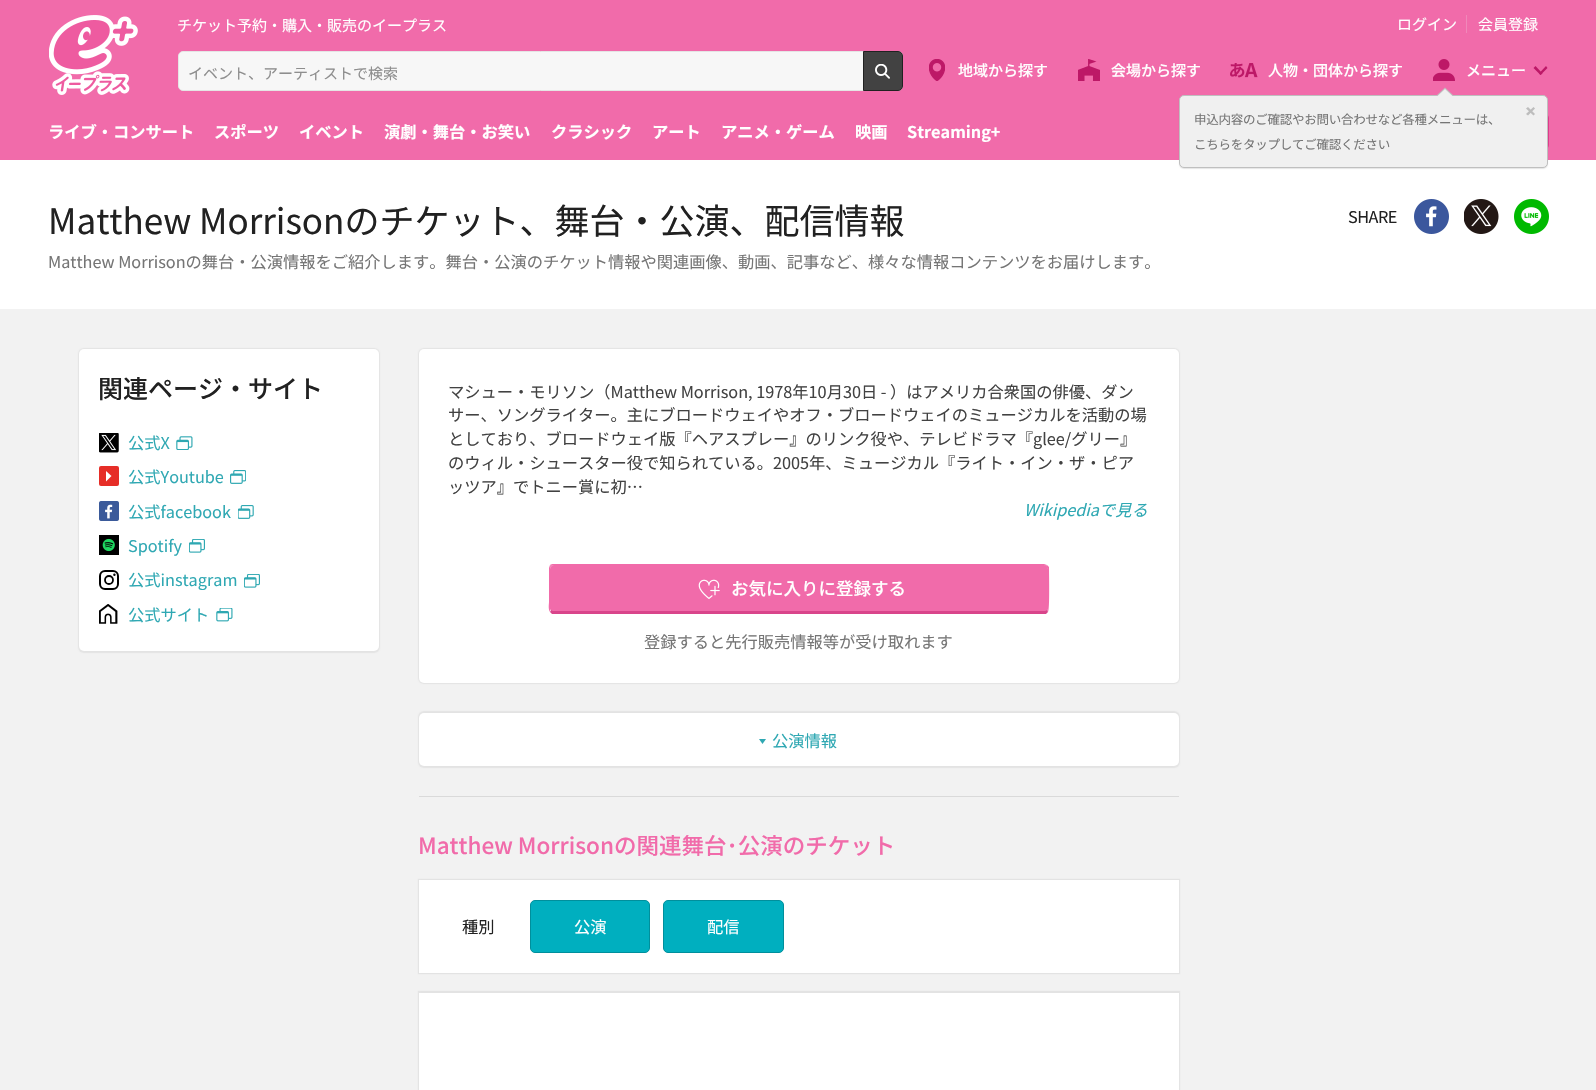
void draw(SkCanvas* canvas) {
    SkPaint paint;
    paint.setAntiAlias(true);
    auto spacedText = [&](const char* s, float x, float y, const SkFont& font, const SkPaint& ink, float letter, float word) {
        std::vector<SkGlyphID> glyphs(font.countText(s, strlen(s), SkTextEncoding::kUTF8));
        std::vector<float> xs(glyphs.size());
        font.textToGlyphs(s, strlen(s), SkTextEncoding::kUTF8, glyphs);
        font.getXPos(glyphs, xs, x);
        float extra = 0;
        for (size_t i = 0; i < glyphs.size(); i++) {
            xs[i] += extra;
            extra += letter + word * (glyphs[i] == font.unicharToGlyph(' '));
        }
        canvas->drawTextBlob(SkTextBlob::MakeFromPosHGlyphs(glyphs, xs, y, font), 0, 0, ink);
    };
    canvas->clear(0xFFF2F2F2);
    paint.setColor(0xFFF16BAA);
    canvas->drawRect(SkRect::MakeXYWH(0, 0, 1596, 160), paint);
    canvas->drawImageRect(SkImages::DeferredFromEncodedData(SkData::MakeFromFileName("img1.png")), SkRect::MakeXYWH(49, 15, 89, 80), SkSamplingOptions());
    SkFont font1(fontMgr->matchFamilyStyle("Noto Sans JP", SkFontStyle::Normal()), 15);
    font1.setSubpixel(true);
    paint.setColor(0xFFFFFFFF);
    canvas->drawString("チケット予約・購入・販売のイープラス", 177, 31, font1, paint);
    canvas->drawString("ログイン", 1397, 30, font1, paint);
    paint.setColor(0xFFF088BA);
    canvas->drawRect(SkRect::MakeXYWH(1466, 15, 1, 18), paint);
    paint.setColor(0xFFFFFFFF);
    canvas->drawString("会員登録", 1478, 30, font1, paint);
    paint.setColor(0xFFF7F7F7);
    canvas->drawRoundRect(SkRect::MakeXYWH(178.5f, 51.5f, 724, 39), 4.5f, 4.5f, paint);
    paint.setStyle(SkPaint::kStroke_Style);
    paint.setStrokeWidth(1);
    paint.setColor(0xFFE5E5E5);
    canvas->drawRoundRect(SkRect::MakeXYWH(178.5f, 51.5f, 724, 39), 4.5f, 4.5f, paint);
    paint.setStyle(SkPaint::kFill_Style);
    paint.setColor(0xFF8E8E8E);
    canvas->drawString("イベント、アーティストで検索", 188, 79, font1, paint);
    paint.setColor(0xFF424242);
    canvas->drawPath(SkPathBuilder().moveTo(863.5f, 51.5f).lineTo(898, 51.5f).cubicTo(900.5f, 51.5f, 902.5f, 53.5f, 902.5f, 56).lineTo(902.5f, 86).cubicTo(902.5f, 88.5f, 900.5f, 90.5f, 898, 90.5f).lineTo(863.5f, 90.5f).close().detach(), paint);
    paint.setStyle(SkPaint::kStroke_Style);
    paint.setColor(0xFF212121);
    canvas->drawPath(SkPathBuilder().moveTo(863.5f, 51.5f).lineTo(898, 51.5f).cubicTo(900.5f, 51.5f, 902.5f, 53.5f, 902.5f, 56).lineTo(902.5f, 86).cubicTo(902.5f, 88.5f, 900.5f, 90.5f, 898, 90.5f).lineTo(863.5f, 90.5f).close().detach(), paint);
    canvas->drawImageRect(SkImages::DeferredFromEncodedData(SkData::MakeFromFileName("img2.png")), SkRect::MakeXYWH(875, 64, 15, 15), SkSamplingOptions());
    canvas->drawImageRect(SkImages::DeferredFromEncodedData(SkData::MakeFromFileName("img3.png")), SkRect::MakeXYWH(929, 59, 16, 22), SkSamplingOptions());
    SkFont font2(fontMgr->matchFamilyStyle("Noto Sans JP", SkFontStyle(500, SkFontStyle::kNormal_Width, SkFontStyle::kUpright_Slant)), 15);
    font2.setSubpixel(true);
    paint.setStyle(SkPaint::kFill_Style);
    paint.setColor(0xFFFFFFFF);
    canvas->drawString("地域から探す", 958, 76, font2, paint);
    canvas->drawImageRect(SkImages::DeferredFromEncodedData(SkData::MakeFromFileName("img4.png")), SkRect::MakeXYWH(1078, 59, 22, 22), SkSamplingOptions());
    canvas->drawString("会場から探す", 1111, 76, font2, paint);
    canvas->drawImageRect(SkImages::DeferredFromEncodedData(SkData::MakeFromFileName("img5.png")), SkRect::MakeXYWH(1230, 63, 28, 15), SkSamplingOptions());
    canvas->drawString("人物・団体から探す", 1268, 76, font2, paint);
    canvas->drawImageRect(SkImages::DeferredFromEncodedData(SkData::MakeFromFileName("img6.png")), SkRect::MakeXYWH(1433, 59, 22, 22), SkSamplingOptions());
    canvas->drawString("メニュー", 1466, 76, font2, paint);
    paint.setColor(0xFFBD1867);
    canvas->drawPath(SkPathBuilder().moveTo(1547.5f, 68).lineTo(1540.5f, 75).lineTo(1539, 73.5f).lineTo(1546, 66).close().detach(), paint);
    canvas->drawPath(SkPathBuilder().moveTo(1542.5f, 73.5f).lineTo(1540.5f, 75).lineTo(1533.5f, 68).lineTo(1535.5f, 66).close().detach(), paint);
    SkFont font3(fontMgr->matchFamilyStyle("Noto Sans JP", SkFontStyle::Bold()), 16.25f);
    font3.setSubpixel(true);
    paint.setColor(0xFFFFFFFF);
    canvas->drawString("ライブ・コンサート", 48, 138, font3, paint);
    canvas->drawString("スポーツ", 214, 138, font3, paint);
    canvas->drawString("イベント", 299, 138, font3, paint);
    canvas->drawString("演劇・舞台・お笑い", 384, 138, font3, paint);
    canvas->drawString("クラシック", 551, 138, font3, paint);
    canvas->drawString("アート", 652, 138, font3, paint);
    canvas->drawString("アニメ・ゲーム", 721, 138, font3, paint);
    canvas->drawString("映画", 855, 138, font3, paint);
    canvas->drawString("Streaming+", 907, 138, font3, paint);
    paint.setStyle(SkPaint::kStroke_Style);
    paint.setColor(0xFFE03D8C);
    canvas->drawRoundRect(SkRect::MakeXYWH(1346.5f, 113.5f, 202, 36), 4.5f, 4.5f, paint);
    paint.setStyle(SkPaint::kFill_Style);
    paint.setColor(0xFFFFFFFF);
    canvas->drawRect(SkRect::MakeXYWH(0, 160, 1596, 149), paint);
    paint.setColor(0x1A000000);
    paint.setMaskFilter(SkMaskFilter::MakeBlur(kNormal_SkBlurStyle, 0.5f));
    canvas->drawRoundRect(SkRect::MakeXYWH(1179, 96, 369, 73), 5, 5, paint);
    paint.setMaskFilter(nullptr);
    paint.setColor(0xFFF0F0F0);
    canvas->drawRoundRect(SkRect::MakeXYWH(1179.5f, 95.5f, 368, 72), 4.5f, 4.5f, paint);
    paint.setStyle(SkPaint::kStroke_Style);
    paint.setColor(0xFFBFBFBF);
    canvas->drawRoundRect(SkRect::MakeXYWH(1179.5f, 95.5f, 368, 72), 4.5f, 4.5f, paint);
    paint.setStyle(SkPaint::kFill_Style);
    canvas->drawPath(SkPathBuilder().moveTo(1454, 96).lineTo(1436, 96).lineTo(1445, 87.5f).close().detach(), paint);
    paint.setColor(0xFFF0F0F0);
    canvas->drawPath(SkPathBuilder().moveTo(1452.5f, 96).lineTo(1437.5f, 96).lineTo(1445, 89).close().detach(), paint);
    paint.setColor(0xFFBDBDBD);
    canvas->drawPath(SkPathBuilder().moveTo(1526, 108.5f).lineTo(1528, 107).lineTo(1535, 114).lineTo(1533.5f, 115.5f).close().detach(), paint);
    canvas->drawPath(SkPathBuilder().moveTo(1533.5f, 107).lineTo(1535, 108.5f).lineTo(1528, 115.5f).lineTo(1526, 114).close().detach(), paint);
    SkFont font4(fontMgr->matchFamilyStyle("Noto Sans JP", SkFontStyle::Normal()), 12.5f);
    font4.setSubpixel(true);
    paint.setColor(0xFF757575);
    spacedText("申込内容のご確認やお問い合わせなど各種メニューは、", 1194, 124, font4, paint, -0.25f, 0);
    spacedText("こちらをタップしてご確認ください", 1194, 149, font4, paint, -0.25f, 0);
    SkFont font5(fontMgr->matchFamilyStyle("Noto Sans JP", SkFontStyle::Normal()), 35);
    font5.setSubpixel(true);
    paint.setColor(0xFF212121);
    canvas->drawString("Matthew Morrisonのチケット、舞台・公演、配信情報", 48, 234, font5, paint);
    SkFont font6(fontMgr->matchFamilyStyle("Noto Sans JP", SkFontStyle::Normal()), 16.25f);
    font6.setSubpixel(true);
    paint.setColor(0xFF757575);
    canvas->drawString("Matthew Morrisonの舞台・公演情報をご紹介します。舞台・公演のチケット情報や関連画像、動画、記事など、様々な情報コンテンツをお届けします。", 48, 268, font6, paint);
    paint.setColor(0xFF212121);
    spacedText("SHARE", 1348, 223, font6, paint, -0.5f, 0);
    canvas->drawImageRect(SkImages::DeferredFromEncodedData(SkData::MakeFromFileName("img7.png")), SkRect::MakeXYWH(1414, 199, 35, 35), SkSamplingOptions());
    canvas->drawImageRect(SkImages::DeferredFromEncodedData(SkData::MakeFromFileName("img8.png")), SkRect::MakeXYWH(1464, 199, 35, 35), SkSamplingOptions());
    canvas->drawImageRect(SkImages::DeferredFromEncodedData(SkData::MakeFromFileName("img9.png")), SkRect::MakeXYWH(1514, 199, 35, 35), SkSamplingOptions());
    paint.setColor(0x0F000000);
    paint.setMaskFilter(SkMaskFilter::MakeBlur(kNormal_SkBlurStyle, 0.5f));
    canvas->drawRoundRect(SkRect::MakeXYWH(78, 348, 302, 305), 6, 6, paint);
    paint.setMaskFilter(nullptr);
    paint.setColor(0xFFFFFFFF);
    canvas->drawRoundRect(SkRect::MakeXYWH(79, 349, 300, 302), 5, 5, paint);
    SkFont font7(fontMgr->matchFamilyStyle("Noto Sans JP", SkFontStyle(500, SkFontStyle::kNormal_Width, SkFontStyle::kUpright_Slant)), 25);
    font7.setSubpixel(true);
    paint.setColor(0xFF212121);
    canvas->drawString("関連ページ・サイト", 98, 398, font7, paint);
    canvas->drawImageRect(SkImages::DeferredFromEncodedData(SkData::MakeFromFileName("img10.png")), SkRect::MakeXYWH(99, 433, 20, 20), SkSamplingOptions());
    paint.setColor(0xFF2FA8B3);
    canvas->drawString("公式X", 128, 449, font6, paint);
    canvas->drawImageRect(SkImages::DeferredFromEncodedData(SkData::MakeFromFileName("img11.png")), SkRect::MakeXYWH(176, 436, 17, 14), SkSamplingOptions());
    paint.setColor(0xFFE62D27);
    canvas->drawRoundRect(SkRect::MakeXYWH(99, 466, 20, 20), 2, 2, paint);
    paint.setColor(0xFFFFFFFF);
    canvas->drawPath(SkPathBuilder().moveTo(106, 471).lineTo(106, 481.5f).lineTo(111.5f, 476).close().detach(), paint);
    paint.setColor(0xFF2FA8B3);
    canvas->drawString("公式Youtube", 128, 483, font6, paint);
    canvas->drawImageRect(SkImages::DeferredFromEncodedData(SkData::MakeFromFileName("img12.png")), SkRect::MakeXYWH(230, 470, 16, 14), SkSamplingOptions());
    canvas->drawImageRect(SkImages::DeferredFromEncodedData(SkData::MakeFromFileName("img13.png")), SkRect::MakeXYWH(99, 501, 20, 20), SkSamplingOptions());
    canvas->drawString("公式facebook", 128, 518, font6, paint);
    canvas->drawImageRect(SkImages::DeferredFromEncodedData(SkData::MakeFromFileName("img14.png")), SkRect::MakeXYWH(238, 505, 16, 14), SkSamplingOptions());
    canvas->drawImageRect(SkImages::DeferredFromEncodedData(SkData::MakeFromFileName("img15.png")), SkRect::MakeXYWH(99, 535, 20, 20), SkSamplingOptions());
    canvas->drawString("Spotify", 128, 552, font6, paint);
    canvas->drawImageRect(SkImages::DeferredFromEncodedData(SkData::MakeFromFileName("img16.png")), SkRect::MakeXYWH(189, 539, 16, 14), SkSamplingOptions());
    paint.setStyle(SkPaint::kStroke_Style);
    paint.setStrokeWidth(2);
    paint.setColor(0xFF000000);
    canvas->drawRoundRect(SkRect::MakeXYWH(100, 571, 18, 18), 5, 5, paint);
    paint.setStrokeWidth(1.8f);
    canvas->drawCircle(109, 580, 4, paint);
    paint.setStyle(SkPaint::kFill_Style);
    canvas->drawCircle(114.4f, 574.8f, 1.2f, paint);
    paint.setColor(0xFF2FA8B3);
    canvas->drawString("公式instagram", 128, 586, font6, paint);
    canvas->drawImageRect(SkImages::DeferredFromEncodedData(SkData::MakeFromFileName("img16.png")), SkRect::MakeXYWH(244, 574, 16, 14), SkSamplingOptions());
    canvas->drawImageRect(SkImages::DeferredFromEncodedData(SkData::MakeFromFileName("img17.png")), SkRect::MakeXYWH(99, 604, 19, 20), SkSamplingOptions());
    canvas->drawString("公式サイト", 128, 621, font6, paint);
    canvas->drawImageRect(SkImages::DeferredFromEncodedData(SkData::MakeFromFileName("img18.png")), SkRect::MakeXYWH(216, 608, 17, 14), SkSamplingOptions());
    paint.setColor(0x0F000000);
    paint.setMaskFilter(SkMaskFilter::MakeBlur(kNormal_SkBlurStyle, 0.5f));
    canvas->drawRoundRect(SkRect::MakeXYWH(418, 348, 762, 336), 6, 6, paint);
    paint.setMaskFilter(nullptr);
    paint.setColor(0xFFFFFFFF);
    canvas->drawRoundRect(SkRect::MakeXYWH(419, 349, 760, 334), 5, 5, paint);
    paint.setColor(0xFF424242);
    canvas->drawString("マシュー・モリソン（Matthew Morrison, 1978年10月30日 - ）はアメリカ合衆国の俳優、ダン", 448, 398, font6, paint);
    canvas->drawString("サー、ソングライター。主にブロードウェイやオフ・ブロードウェイのミュージカルを活動の場", 448, 421, font6, paint);
    canvas->drawString("としており、ブロードウェイ版『ヘアスプレー』のリンク役や、テレビドラマ『glee/グリー』", 448, 445, font6, paint);
    canvas->drawString("のウィル・シュースター役で知られている。2005年、ミュージカル『ライト・イン・ザ・ピア", 448, 469, font6, paint);
    canvas->drawString("ッツア』でトニー賞に初…", 448, 493, font6, paint);
    SkFont font8(fontMgr->matchFamilyStyle("Noto Sans JP", SkFontStyle::Italic()), 16.25f);
    font8.setSubpixel(true);
    paint.setColor(0xFF2FA8B3);
    canvas->drawString("Wikipediaで見る", 1024, 516, font8, paint);
    paint.setColor(0xFFF16BAA);
    canvas->drawPath(SkPathBuilder().moveTo(554, 565).lineTo(1044, 565).cubicTo(1046, 565, 1048, 567, 1048, 569).lineTo(1048, 609).cubicTo(1048, 610, 1046, 611, 1044, 611).lineTo(554, 611).cubicTo(552, 611, 550, 610, 550, 609).lineTo(550, 569).cubicTo(550, 567, 552, 565, 554, 565).close().detach(), paint);
    canvas->drawPath(SkPathBuilder().moveTo(554, 564).cubicTo(552, 564, 551, 564, 550, 565).lineTo(551, 566).lineTo(554, 565).lineTo(1044, 565).lineTo(1046, 566).lineTo(1047, 565).lineTo(1044, 564).close().detach(), paint);
    canvas->drawPath(SkPathBuilder().moveTo(1047, 565).lineTo(1049, 567).cubicTo(1049, 573, 1050, 610, 1048, 612).lineTo(1047, 610).lineTo(1048, 609).lineTo(1048, 569).lineTo(1046, 566).close().detach(), paint);
    paint.setColor(0xFFD9458B);
    canvas->drawPath(SkPathBuilder().moveTo(552, 614).lineTo(550, 612).lineTo(551, 610).lineTo(554, 611).lineTo(1044, 611).lineTo(1047, 610).lineTo(1048, 612).lineTo(1046, 614).close().detach(), paint);
    paint.setColor(0xFFF16BAA);
    canvas->drawPath(SkPathBuilder().moveTo(550, 565).lineTo(549, 568).lineTo(549, 602).cubicTo(549, 604, 548, 609, 550, 612).lineTo(550, 610).cubicTo(550, 609, 550, 572, 550, 569).lineTo(551, 566).close().detach(), paint);
    canvas->drawImageRect(SkImages::DeferredFromEncodedData(SkData::MakeFromFileName("img19.png")), SkRect::MakeXYWH(698, 579, 22, 20), SkSamplingOptions());
    SkFont font9(fontMgr->matchFamilyStyle("Noto Sans JP", SkFontStyle(500, SkFontStyle::kNormal_Width, SkFontStyle::kUpright_Slant)), 17.5f);
    font9.setSubpixel(true);
    paint.setColor(0xFFFFFFFF);
    canvas->drawString("お気に入りに登録する", 731, 595, font9, paint);
    paint.setColor(0xFF757575);
    canvas->drawString("登録すると先行販売情報等が受け取れます", 644, 648, font6, paint);
    paint.setColor(0x0F000000);
    paint.setMaskFilter(SkMaskFilter::MakeBlur(kNormal_SkBlurStyle, 0.5f));
    canvas->drawRoundRect(SkRect::MakeXYWH(418, 711, 762, 57), 6, 6, paint);
    paint.setMaskFilter(nullptr);
    paint.setColor(0xFFFFFFFF);
    canvas->drawRoundRect(SkRect::MakeXYWH(419, 713, 760, 53), 5, 5, paint);
    paint.setColor(0xFF2FA8B3);
    canvas->drawPath(SkPathBuilder().moveTo(759, 739).lineTo(766, 739).lineTo(762.5f, 744).close().detach(), paint);
    canvas->drawString("公演情報", 772, 747, font6, paint);
    paint.setColor(0xFFDADADA);
    canvas->drawRect(SkRect::MakeXYWH(419, 796, 760, 1), paint);
    SkFont font10(fontMgr->matchFamilyStyle("Noto Sans JP", SkFontStyle(500, SkFontStyle::kNormal_Width, SkFontStyle::kUpright_Slant)), 22.5f);
    font10.setSubpixel(true);
    paint.setColor(0xFFF16BAA);
    canvas->drawString("Matthew Morrisonの関連舞台･公演のチケット", 418, 854, font10, paint);
    paint.setColor(0x0F000000);
    paint.setMaskFilter(SkMaskFilter::MakeBlur(kNormal_SkBlurStyle, 0.5f));
    canvas->drawRect(SkRect::MakeXYWH(418, 879, 762, 95), paint);
    paint.setMaskFilter(nullptr);
    paint.setColor(0xFFFFFFFF);
    canvas->drawRect(SkRect::MakeXYWH(419, 880, 760, 93), paint);
    paint.setColor(0xFF212121);
    canvas->drawString("種別", 462, 933, font6, paint);
    paint.setColor(0xFF00AFBF);
    canvas->drawRoundRect(SkRect::MakeXYWH(530.5f, 900.5f, 119, 52), 4.5f, 4.5f, paint);
    paint.setStyle(SkPaint::kStroke_Style);
    paint.setStrokeWidth(1);
    paint.setColor(0xFF008F9C);
    canvas->drawRoundRect(SkRect::MakeXYWH(530.5f, 900.5f, 119, 52), 4.5f, 4.5f, paint);
    paint.setStyle(SkPaint::kFill_Style);
    paint.setColor(0xFFFFFFFF);
    canvas->drawString("公演", 574, 933, font6, paint);
    paint.setColor(0xFF00AFBF);
    canvas->drawRoundRect(SkRect::MakeXYWH(663.5f, 900.5f, 120, 52), 4.5f, 4.5f, paint);
    paint.setStyle(SkPaint::kStroke_Style);
    paint.setColor(0xFF008F9C);
    canvas->drawRoundRect(SkRect::MakeXYWH(663.5f, 900.5f, 120, 52), 4.5f, 4.5f, paint);
    paint.setStyle(SkPaint::kFill_Style);
    paint.setColor(0xFFFFFFFF);
    canvas->drawString("配信", 707, 933, font6, paint);
    paint.setColor(0x0F000000);
    paint.setMaskFilter(SkMaskFilter::MakeBlur(kNormal_SkBlurStyle, 0.5f));
    canvas->drawRect(SkRect::MakeXYWH(418, 991, 762, 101), paint);
    paint.setMaskFilter(nullptr);
    paint.setColor(0xFFFFFFFF);
    canvas->drawRect(SkRect::MakeXYWH(419, 993, 760, 97), paint);
}
